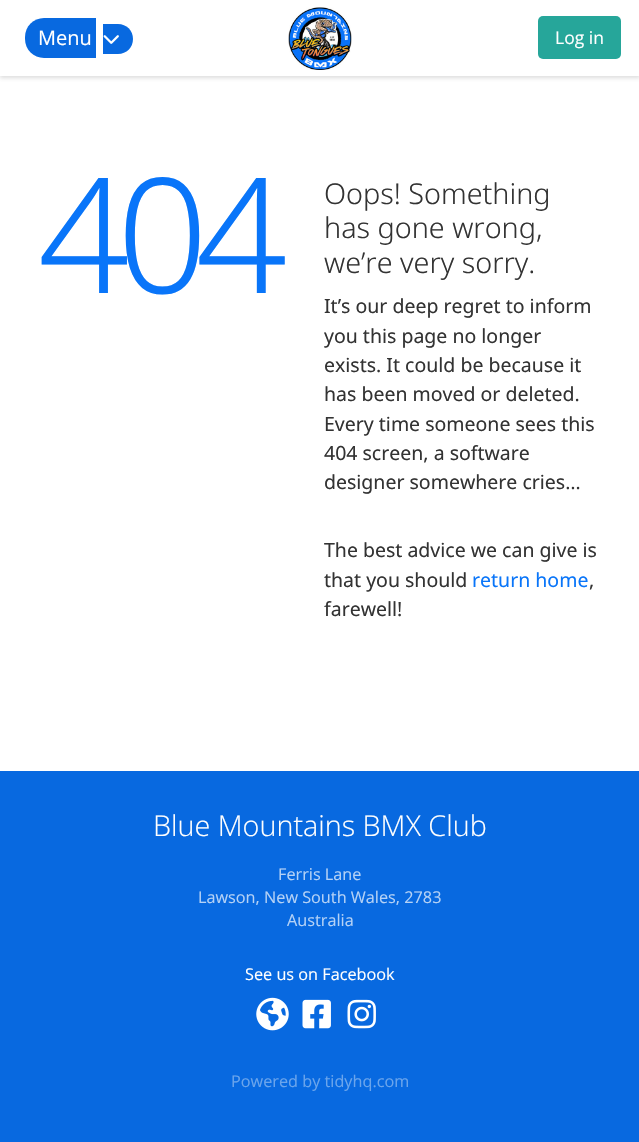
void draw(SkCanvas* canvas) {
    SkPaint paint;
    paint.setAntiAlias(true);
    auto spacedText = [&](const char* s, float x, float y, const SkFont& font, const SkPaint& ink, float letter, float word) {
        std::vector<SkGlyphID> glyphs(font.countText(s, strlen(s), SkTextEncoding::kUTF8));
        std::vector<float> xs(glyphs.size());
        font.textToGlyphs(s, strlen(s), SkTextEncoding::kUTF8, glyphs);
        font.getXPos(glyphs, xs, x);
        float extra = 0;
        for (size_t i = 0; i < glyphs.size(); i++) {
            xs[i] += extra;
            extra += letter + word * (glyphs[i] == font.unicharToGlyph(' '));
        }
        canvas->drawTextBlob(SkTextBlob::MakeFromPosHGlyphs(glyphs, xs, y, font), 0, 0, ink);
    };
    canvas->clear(0xFFFFFFFF);
    canvas->save();
    canvas->clipRect(SkRect::MakeXYWH(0, 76, 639, 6));
    paint.setColor(0xFFDDDDDD);
    paint.setMaskFilter(SkMaskFilter::MakeBlur(kNormal_SkBlurStyle, 2));
    canvas->drawRect(SkRect::MakeXYWH(0, 1, 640, 77), paint);
    paint.setMaskFilter(nullptr);
    canvas->restore();
    paint.setColor(0xFF0869E0);
    canvas->drawPath(SkPathBuilder().moveTo(44, 18).lineTo(96, 18).lineTo(96, 58).lineTo(44, 58).cubicTo(33.5f, 58, 25, 49.5f, 25, 39).lineTo(25, 37).cubicTo(25, 26.5f, 33.5f, 18, 44, 18).close().detach(), paint);
    canvas->drawPath(SkPathBuilder().moveTo(103, 24).lineTo(118, 24).cubicTo(126.5f, 24, 133, 30.5f, 133, 39).cubicTo(133, 47.5f, 126.5f, 54, 118, 54).lineTo(103, 54).close().detach(), paint);
    SkFont font1(fontMgr->matchFamilyStyle("Open Sans", SkFontStyle::Normal()), 20);
    font1.setSubpixel(true);
    paint.setColor(0xFFFFFFFF);
    canvas->drawString("Menu", 38, 45, font1, paint);
    canvas->drawImageRect(SkImages::DeferredFromEncodedData(SkData::MakeFromFileName("img1.png")), SkRect::MakeXYWH(103, 35, 16, 9), SkSamplingOptions());
    canvas->drawImageRect(SkImages::DeferredFromEncodedData(SkData::MakeFromFileName("img2.png")), SkRect::MakeXYWH(288, 7, 64, 63), SkSamplingOptions());
    paint.setColor(0xFF26A69A);
    canvas->drawRoundRect(SkRect::MakeXYWH(538, 16, 83, 43), 5, 5, paint);
    SkFont font2(fontMgr->matchFamilyStyle("Open Sans", SkFontStyle::Normal()), 17.5f);
    font2.setSubpixel(true);
    paint.setColor(0xFFFFFFFF);
    canvas->drawString("Log in", 555, 44, font2, paint);
    SkFont font3(fontMgr->matchFamilyStyle("Noto Sans", SkFontStyle(300, SkFontStyle::kNormal_Width, SkFontStyle::kUpright_Slant)), 160);
    font3.setSubpixel(true);
    paint.setColor(0xFF0975F9);
    spacedText("404", 38, 293, font3, paint, -12.5f, 0);
    SkFont font4(fontMgr->matchFamilyStyle("Noto Sans", SkFontStyle(300, SkFontStyle::kNormal_Width, SkFontStyle::kUpright_Slant)), 28.75f);
    font4.setSubpixel(true);
    paint.setColor(0xFF333333);
    canvas->drawString("Oops! Something", 324, 204, font4, paint);
    canvas->drawString("has gone wrong,", 324, 238, font4, paint);
    canvas->drawString("we’re very sorry.", 324, 273, font4, paint);
    SkFont font5(fontMgr->matchFamilyStyle("Noto Sans", SkFontStyle::Normal()), 19.5f);
    font5.setSubpixel(true);
    canvas->drawString("It’s our deep regret to inform", 324, 313, font5, paint);
    canvas->drawString("you this page no longer", 324, 343, font5, paint);
    canvas->drawString("exists. It could be because it", 324, 372, font5, paint);
    canvas->drawString("has been moved or deleted.", 324, 401, font5, paint);
    canvas->drawString("Every time someone sees this", 324, 431, font5, paint);
    canvas->drawString("404 screen, a software", 324, 460, font5, paint);
    canvas->drawString("designer somewhere cries…", 324, 489, font5, paint);
    canvas->drawString("The best advice we can give is", 324, 557, font5, paint);
    canvas->drawString("that you should", 324, 587, font5, paint);
    paint.setColor(0xFF0975F9);
    canvas->drawString("return home", 472, 587, font5, paint);
    paint.setColor(0xFF333333);
    canvas->drawString(",", 589, 587, font5, paint);
    canvas->drawString("farewell!", 324, 616, font5, paint);
    paint.setColor(0xFF0869E0);
    canvas->drawRect(SkRect::MakeXYWH(0, 771, 639, 371), paint);
    SkFont font6(fontMgr->matchFamilyStyle("Open Sans", SkFontStyle(300, SkFontStyle::kNormal_Width, SkFontStyle::kUpright_Slant)), 28.75f);
    font6.setSubpixel(true);
    paint.setColor(0xFFFFFFFF);
    canvas->drawString("Blue Mountains BMX Club", 153, 836, font6, paint);
    SkFont font7(fontMgr->matchFamilyStyle("Open Sans", SkFontStyle::Normal()), 16.25f);
    font7.setSubpixel(true);
    paint.setColor(0xFFB5D2F6);
    canvas->drawString("Ferris Lane", 278, 880, font7, paint);
    canvas->drawString("Lawson, New South Wales, 2783", 198, 903, font7, paint);
    canvas->drawString("Australia", 287, 926, font7, paint);
    paint.setColor(0xFFFFFFFF);
    canvas->drawString("See us on Facebook", 245, 980, font7, paint);
    canvas->drawImageRect(SkImages::DeferredFromEncodedData(SkData::MakeFromFileName("img3.png")), SkRect::MakeXYWH(256, 997, 33, 34), SkSamplingOptions());
    canvas->drawImageRect(SkImages::DeferredFromEncodedData(SkData::MakeFromFileName("img4.png")), SkRect::MakeXYWH(302, 999, 29, 30), SkSamplingOptions());
    canvas->drawImageRect(SkImages::DeferredFromEncodedData(SkData::MakeFromFileName("img5.png")), SkRect::MakeXYWH(347, 999, 29, 30), SkSamplingOptions());
    paint.setColor(0xFF6BA5EC);
    canvas->drawString("Powered by tidyhq.com", 231, 1087, font7, paint);
}
